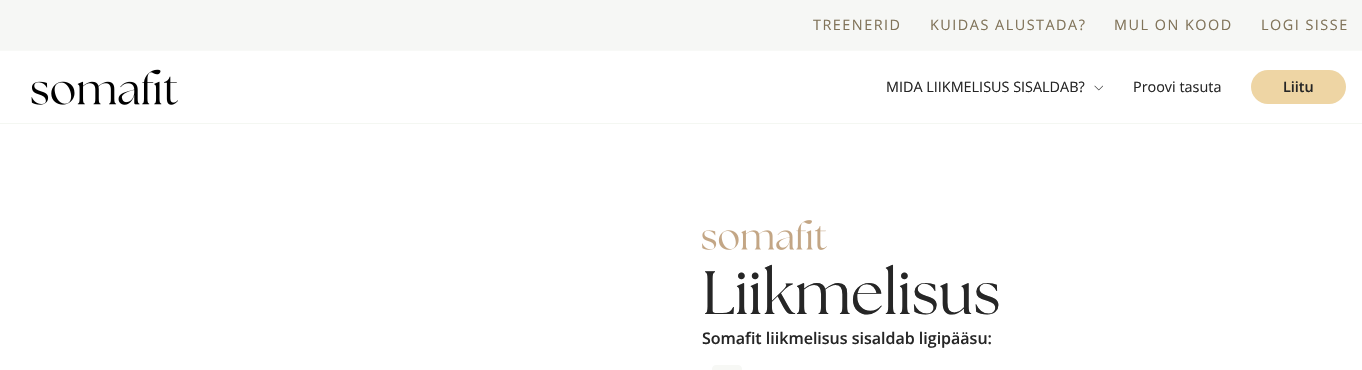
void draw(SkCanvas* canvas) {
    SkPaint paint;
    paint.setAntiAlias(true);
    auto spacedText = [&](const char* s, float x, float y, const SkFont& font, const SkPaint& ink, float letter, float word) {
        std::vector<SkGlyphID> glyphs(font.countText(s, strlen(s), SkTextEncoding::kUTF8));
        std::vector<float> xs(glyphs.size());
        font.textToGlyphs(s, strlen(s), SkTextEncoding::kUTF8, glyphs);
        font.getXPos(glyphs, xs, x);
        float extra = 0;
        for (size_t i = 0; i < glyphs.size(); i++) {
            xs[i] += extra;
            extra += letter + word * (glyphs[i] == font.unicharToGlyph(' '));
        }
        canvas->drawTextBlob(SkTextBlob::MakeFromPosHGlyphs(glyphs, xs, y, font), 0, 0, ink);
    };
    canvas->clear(0xFFFFFFFF);
    paint.setColor(0xFFF6F7F5);
    canvas->drawRect(SkRect::MakeXYWH(0, 0, 1362, 50), paint);
    paint.setColor(0xFFF8F9F7);
    canvas->drawRect(SkRect::MakeXYWH(0, 50, 1362, 1), paint);
    SkFont font1(fontMgr->matchFamilyStyle("Open Sans", SkFontStyle::Normal()), 14.4f);
    font1.setSubpixel(true);
    paint.setColor(0xFF81745A);
    spacedText("TREENERID", 813, 30, font1, paint, 1.5f, 0);
    spacedText("KUIDAS ALUSTADA?", 930, 30, font1, paint, 1.5f, 0);
    spacedText("MUL ON KOOD", 1114, 30, font1, paint, 1.5f, 0);
    spacedText("LOGI SISSE", 1261, 30, font1, paint, 1.5f, 0);
    paint.setColor(0xFFF4F7F2);
    canvas->drawRect(SkRect::MakeXYWH(0, 123, 1362, 1), paint);
    canvas->drawImageRect(SkImages::DeferredFromEncodedData(SkData::MakeFromFileName("img1.png")), SkRect::MakeXYWH(31, 69, 147, 36), SkSamplingOptions());
    paint.setColor(0xFF262626);
    canvas->drawString("MIDA LIIKMELISUS SISALDAB?", 886, 92, font1, paint);
    canvas->drawImageRect(SkImages::DeferredFromEncodedData(SkData::MakeFromFileName("img2.png")), SkRect::MakeXYWH(1094, 85, 9, 6), SkSamplingOptions());
    canvas->drawString("Proovi tasuta", 1133, 92, font1, paint);
    paint.setColor(0xFFEED5A4);
    canvas->drawRoundRect(SkRect::MakeXYWH(1251, 70, 95, 34), 17, 17, paint);
    SkFont font2(fontMgr->matchFamilyStyle("Open Sans", SkFontStyle(600, SkFontStyle::kNormal_Width, SkFontStyle::kUpright_Slant)), 14.4f);
    font2.setSubpixel(true);
    paint.setColor(0xFF262626);
    canvas->drawString("Liitu", 1283, 92, font2, paint);
    canvas->drawImageRect(SkImages::DeferredFromEncodedData(SkData::MakeFromFileName("img3.png")), SkRect::MakeXYWH(702, 220, 125, 30), SkSamplingOptions());
    SkFont font3(fontMgr->matchFamilyStyle("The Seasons", SkFontStyle::Normal()), 61);
    font3.setSubpixel(true);
    canvas->drawString("Liikmelisus", 702, 314, font3, paint);
    SkFont font4(fontMgr->matchFamilyStyle("Open Sans", SkFontStyle(600, SkFontStyle::kNormal_Width, SkFontStyle::kUpright_Slant)), 16);
    font4.setSubpixel(true);
    canvas->drawString("Somafit liikmelisus sisaldab ligipääsu:", 702, 344, font4, paint);
    canvas->drawImageRect(SkImages::DeferredFromEncodedData(SkData::MakeFromFileName("img4.png")), SkRect::MakeXYWH(712, 365, 30, 5), SkSamplingOptions());
}
